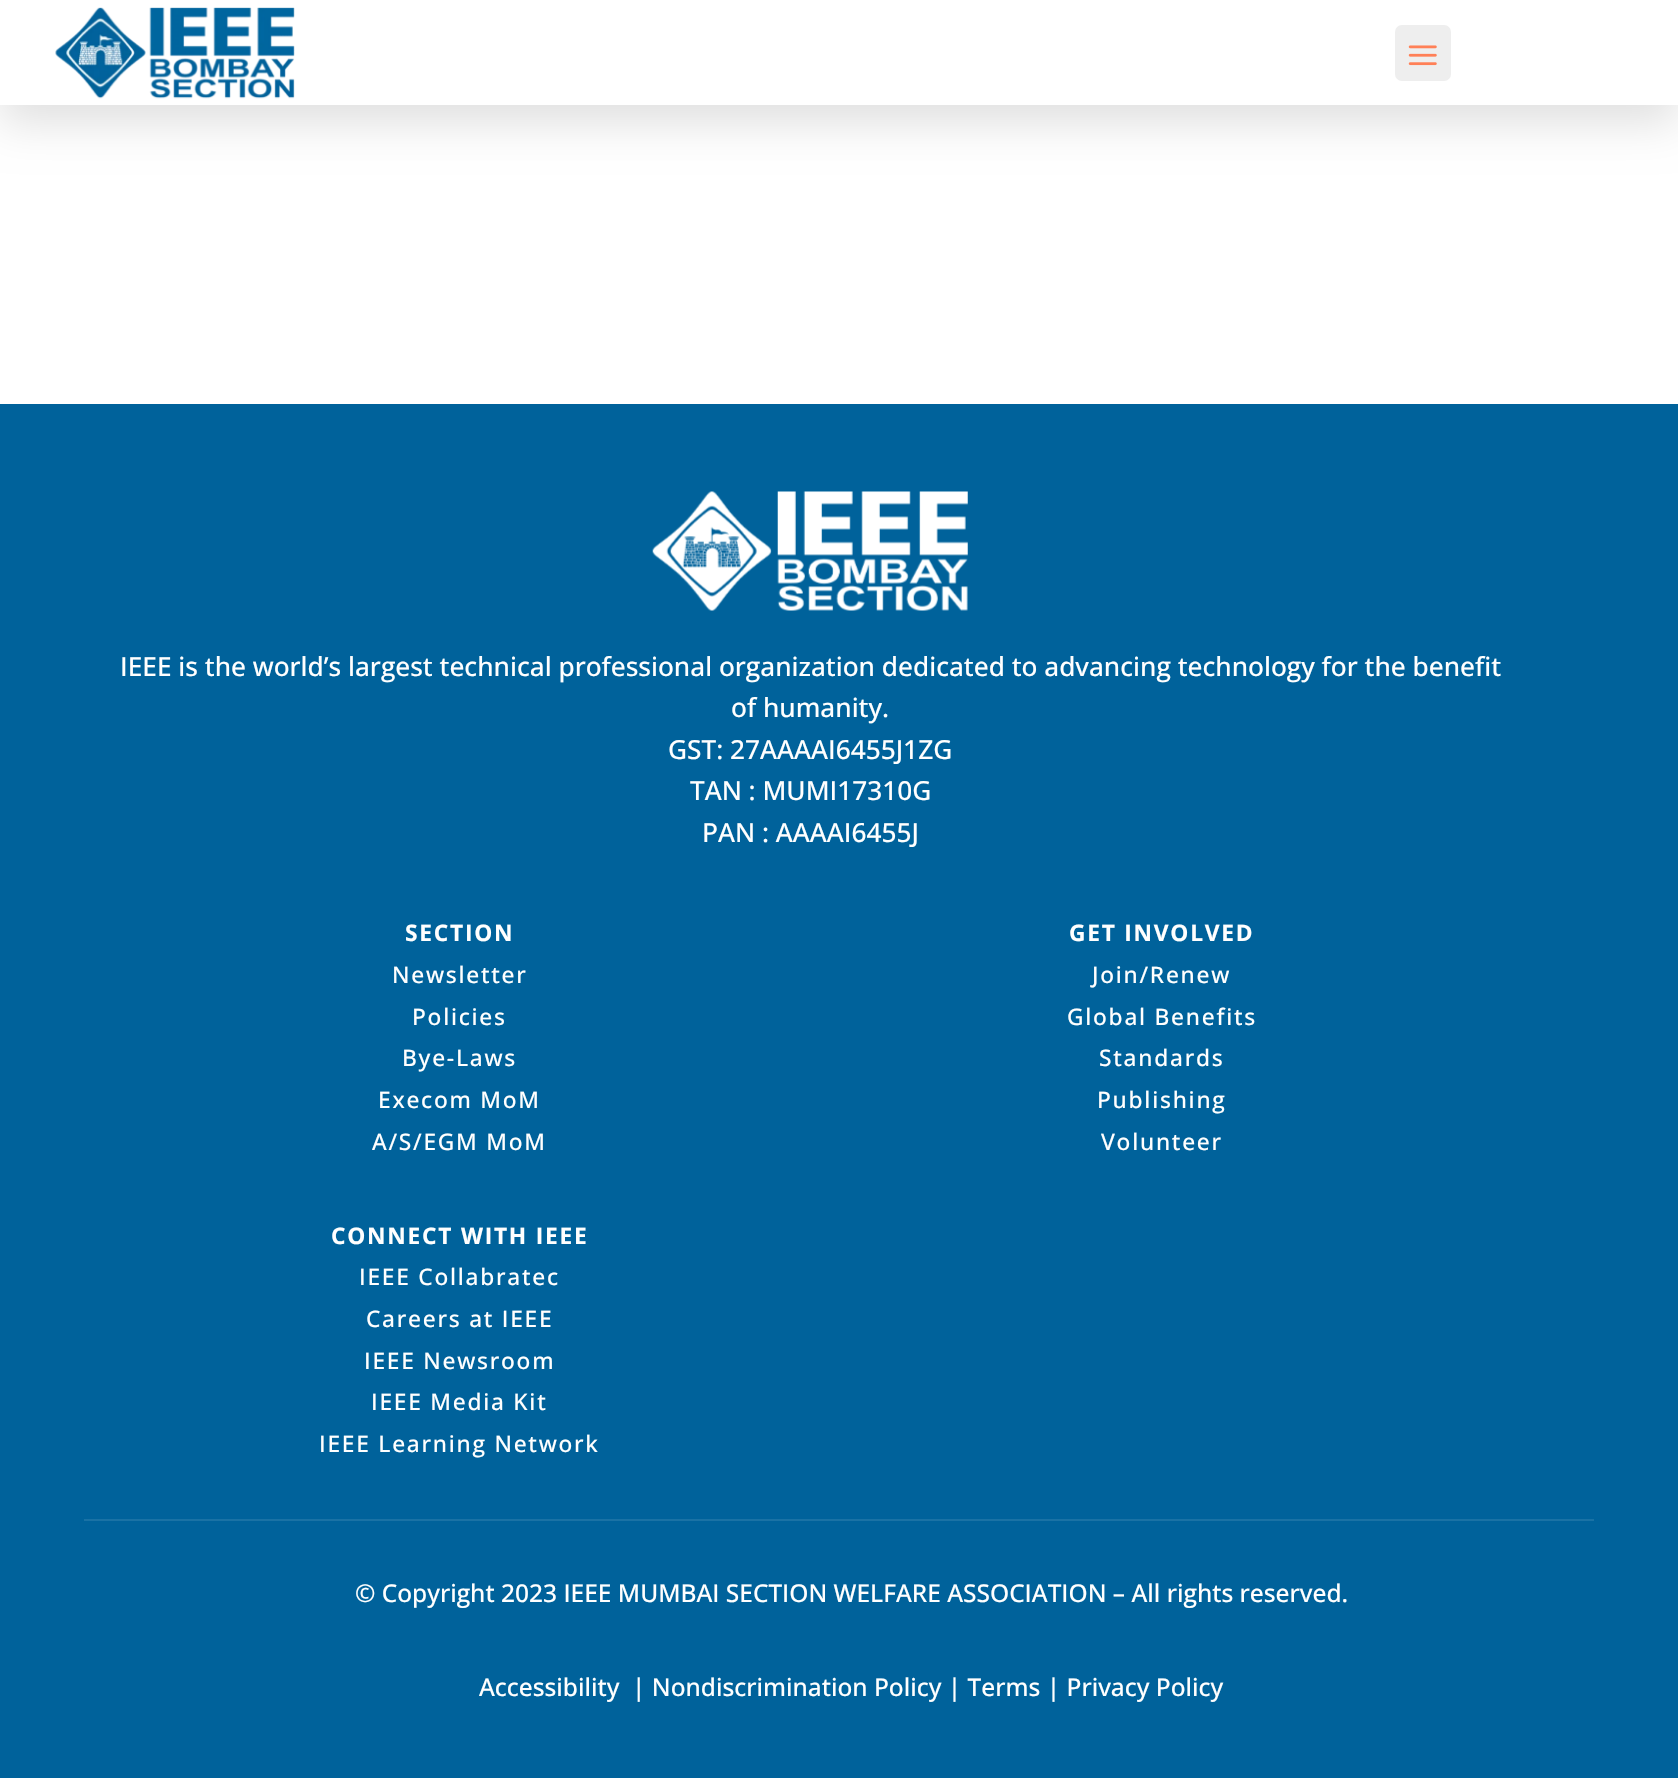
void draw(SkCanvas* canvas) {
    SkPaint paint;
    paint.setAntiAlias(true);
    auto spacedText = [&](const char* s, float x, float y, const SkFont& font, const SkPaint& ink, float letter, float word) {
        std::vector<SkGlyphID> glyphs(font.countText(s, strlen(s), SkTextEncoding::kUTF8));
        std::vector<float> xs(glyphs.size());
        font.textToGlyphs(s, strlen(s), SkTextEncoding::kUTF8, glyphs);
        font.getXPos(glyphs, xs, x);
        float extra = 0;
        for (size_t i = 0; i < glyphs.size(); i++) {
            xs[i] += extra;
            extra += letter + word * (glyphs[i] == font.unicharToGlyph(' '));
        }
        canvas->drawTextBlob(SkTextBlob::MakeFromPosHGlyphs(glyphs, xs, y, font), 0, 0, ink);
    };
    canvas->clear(0xFFFFFFFF);
    paint.setColor(0x1F000000);
    paint.setMaskFilter(SkMaskFilter::MakeBlur(kNormal_SkBlurStyle, 22));
    canvas->drawRect(SkRect::MakeXYWH(0, 18, 1678, 105), paint);
    paint.setMaskFilter(nullptr);
    paint.setColor(0xFFFFFFFF);
    canvas->drawRect(SkRect::MakeXYWH(0, 0, 1678, 105), paint);
    canvas->drawImageRect(SkImages::DeferredFromEncodedData(SkData::MakeFromFileName("img1.png")), SkRect::MakeXYWH(55, 7, 240, 92), SkSamplingOptions());
    paint.setColor(0xFFEEEEEE);
    canvas->drawRoundRect(SkRect::MakeXYWH(1395, 25, 56, 56), 7, 7, paint);
    canvas->drawImageRect(SkImages::DeferredFromEncodedData(SkData::MakeFromFileName("img2.png")), SkRect::MakeXYWH(1408, 45, 29, 21), SkSamplingOptions());
    paint.setColor(0xFF00629B);
    canvas->drawRect(SkRect::MakeXYWH(0, 404, 1678, 1374), paint);
    paint.setColor(0xFF1A72A5);
    canvas->drawRect(SkRect::MakeXYWH(84, 1519, 1510, 2), paint);
    canvas->drawImageRect(SkImages::DeferredFromEncodedData(SkData::MakeFromFileName("img3.png")), SkRect::MakeXYWH(652, 491, 316, 120), SkSamplingOptions());
    SkFont font1(fontMgr->matchFamilyStyle("Open Sans", SkFontStyle(500, SkFontStyle::kNormal_Width, SkFontStyle::kUpright_Slant)), 26.25f);
    font1.setSubpixel(true);
    paint.setColor(0xFFFFFFFF);
    canvas->drawString("IEEE is the world’s largest technical professional organization dedicated to advancing technology for the benefit", 120, 676, font1, paint);
    canvas->drawString("of humanity.", 731, 717, font1, paint);
    canvas->drawString("GST: 27AAAAI6455J1ZG", 668, 759, font1, paint);
    canvas->drawString("TAN : MUMI17310G", 690, 800, font1, paint);
    canvas->drawString("PAN : AAAAI6455J", 702, 842, font1, paint);
    SkFont font2(fontMgr->matchFamilyStyle("Open Sans", SkFontStyle::Bold()), 22.75f);
    font2.setSubpixel(true);
    spacedText("SECTION", 405, 941, font2, paint, 1.75f, 0);
    SkFont font3(fontMgr->matchFamilyStyle("Open Sans", SkFontStyle(500, SkFontStyle::kNormal_Width, SkFontStyle::kUpright_Slant)), 22.75f);
    font3.setSubpixel(true);
    spacedText("Newsletter", 392, 983, font3, paint, 1.75f, 0);
    spacedText("Policies", 412, 1025, font3, paint, 1.75f, 0);
    spacedText("Bye-Laws", 402, 1066, font3, paint, 1.75f, 0);
    spacedText("Execom MoM", 378, 1108, font3, paint, 1.75f, 0);
    spacedText("A/S/EGM MoM", 372, 1150, font3, paint, 1.75f, 0);
    spacedText("GET INVOLVED", 1069, 941, font2, paint, 1.75f, 0);
    spacedText("Join/Renew", 1092, 983, font3, paint, 1.75f, 0);
    spacedText("Global Benefits", 1067, 1025, font3, paint, 1.75f, 0);
    spacedText("Standards", 1099, 1066, font3, paint, 1.75f, 0);
    spacedText("Publishing", 1097, 1108, font3, paint, 1.75f, 0);
    spacedText("Volunteer", 1101, 1150, font3, paint, 1.75f, 0);
    spacedText("CONNECT WITH IEEE", 331, 1244, font2, paint, 1.75f, 0);
    spacedText("IEEE Collabratec", 359, 1285, font3, paint, 1.75f, 0);
    spacedText("Careers at IEEE", 366, 1327, font3, paint, 1.75f, 0);
    spacedText("IEEE Newsroom", 364, 1369, font3, paint, 1.75f, 0);
    spacedText("IEEE Media Kit", 371, 1410, font3, paint, 1.75f, 0);
    spacedText("IEEE Learning Network", 319, 1452, font3, paint, 1.75f, 0);
    SkFont font4(fontMgr->matchFamilyStyle("Open Sans", SkFontStyle(500, SkFontStyle::kNormal_Width, SkFontStyle::kUpright_Slant)), 24.5f);
    font4.setSubpixel(true);
    canvas->drawString("© Copyright 2023 IEEE MUMBAI SECTION WELFARE ASSOCIATION – All rights reserved.", 355, 1602, font4, paint);
    canvas->drawString("Accessibility", 479, 1696, font4, paint);
    canvas->drawString("| Nondiscrimination Policy | Terms | Privacy Policy", 632, 1696, font4, paint);
}
